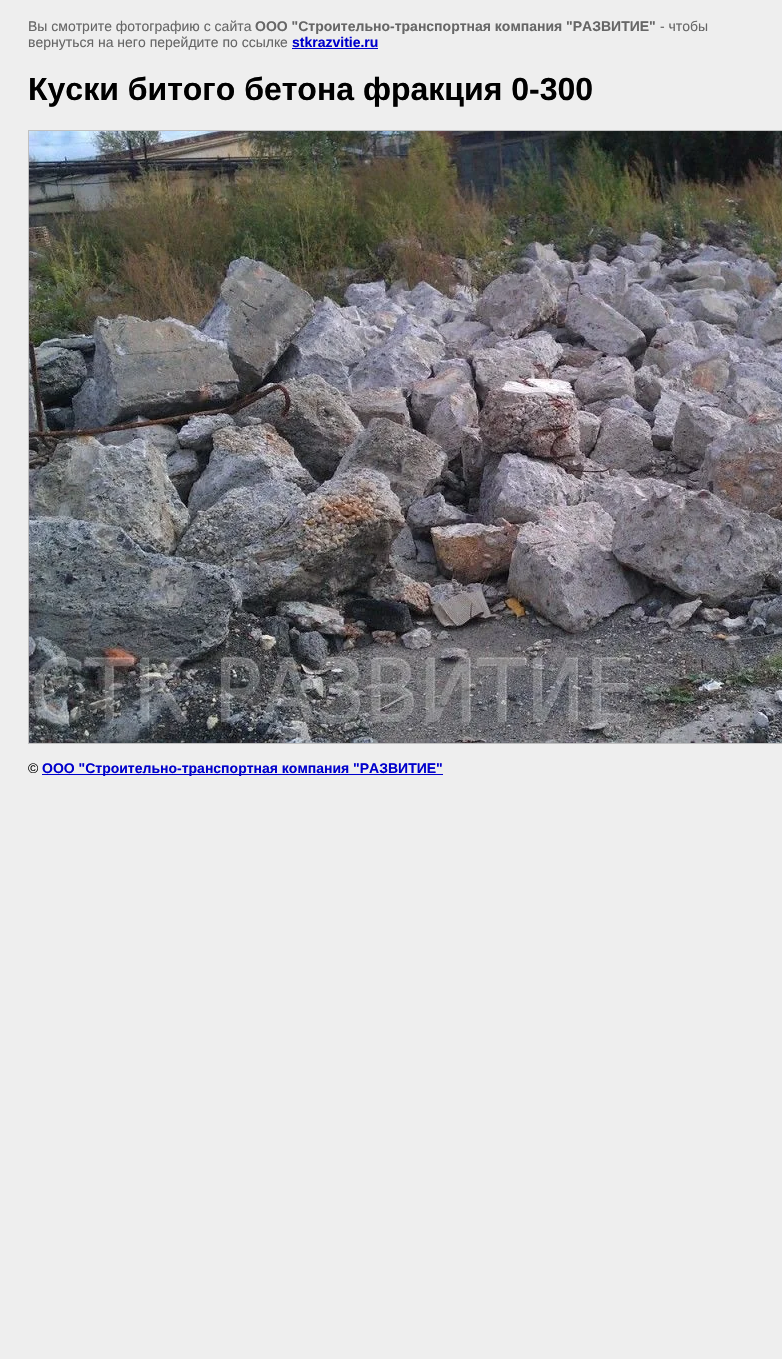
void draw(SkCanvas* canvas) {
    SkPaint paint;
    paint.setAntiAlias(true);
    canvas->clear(0xFFEEEEEE);
    SkFont font1(fontMgr->matchFamilyStyle("Liberation Sans", SkFontStyle::Normal()), 14);
    font1.setSubpixel(true);
    paint.setColor(0xFF666666);
    canvas->drawString("Вы смотрите фотографию с сайта", 28, 31, font1, paint);
    SkFont font2(fontMgr->matchFamilyStyle("Liberation Sans", SkFontStyle::Bold()), 14);
    font2.setSubpixel(true);
    canvas->drawString("ООО \"Строительно-транспортная компания \"РАЗВИТИЕ\"", 255, 31, font2, paint);
    canvas->drawString("- чтобы", 660, 31, font1, paint);
    canvas->drawString("вернуться на него перейдите по ссылке", 28, 47, font1, paint);
    paint.setColor(0xFF0000CC);
    canvas->drawString("stkrazvitie.ru", 292, 47, font2, paint);
    canvas->drawRect(SkRect::MakeXYWH(292, 48, 86, 1), paint);
    SkFont font3(fontMgr->matchFamilyStyle("Liberation Sans", SkFontStyle::Bold()), 32);
    font3.setSubpixel(true);
    paint.setColor(0xFF000000);
    canvas->drawString("Куски битого бетона фракция 0-300", 28, 100, font3, paint);
    paint.setStyle(SkPaint::kStroke_Style);
    paint.setStrokeWidth(1);
    paint.setColor(0xFFC0C0C0);
    canvas->drawRect(SkRect::MakeXYWH(28.5f, 130.5f, 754, 613), paint);
    canvas->drawImageRect(SkImages::DeferredFromEncodedData(SkData::MakeFromFileName("img1.png")), SkRect::MakeXYWH(29, 131, 753, 612), SkSamplingOptions());
    paint.setStyle(SkPaint::kFill_Style);
    paint.setColor(0xFF000000);
    canvas->drawString("©", 28, 773, font1, paint);
    paint.setColor(0xFF0000CC);
    canvas->drawRect(SkRect::MakeXYWH(42, 774, 401, 1), paint);
    canvas->drawString("ООО \"Строительно-транспортная компания \"РАЗВИТИЕ\"", 42, 773, font2, paint);
}
